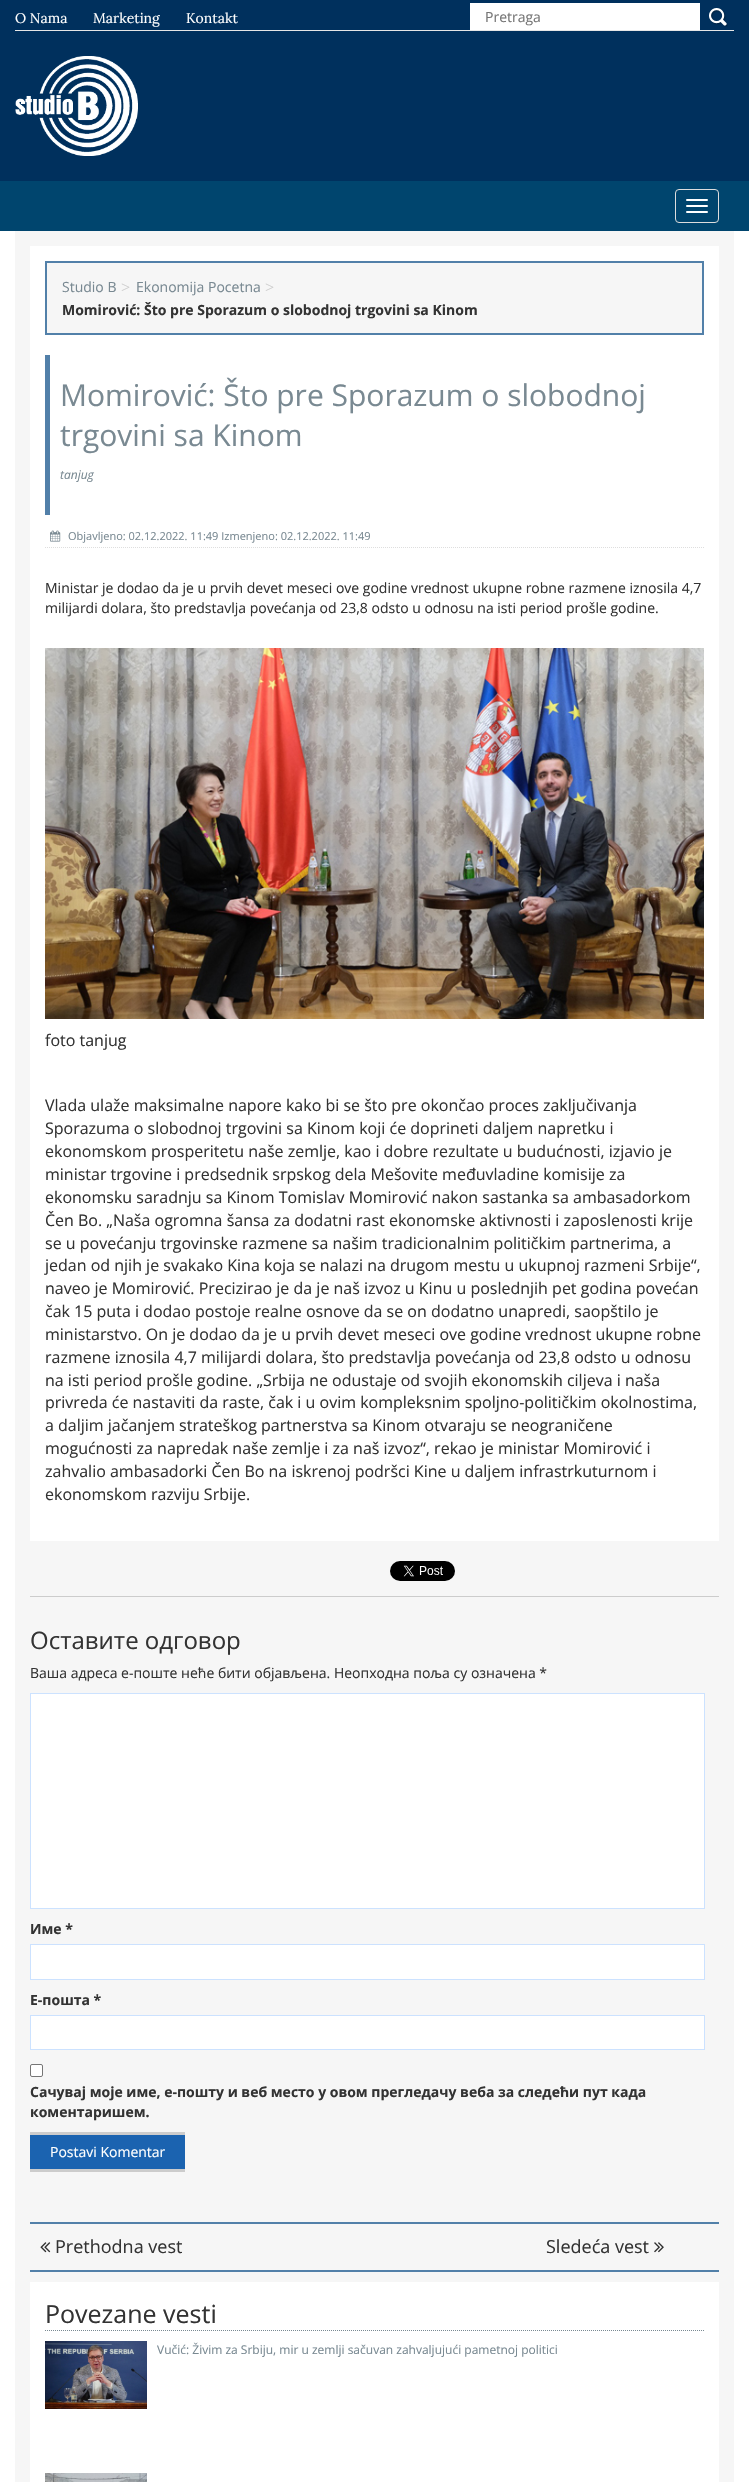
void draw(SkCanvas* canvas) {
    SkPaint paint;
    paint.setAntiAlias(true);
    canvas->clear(0xFFFFFFFF);
    paint.setColor(0xFF00305D);
    canvas->drawRect(SkRect::MakeXYWH(0, 0, 749, 181), paint);
    paint.setColor(0xFFE6E6E6);
    canvas->drawRect(SkRect::MakeXYWH(15, 30, 719, 1), paint);
    SkFont font1(fontMgr->matchFamilyStyle("Lora", SkFontStyle::Normal()), 14);
    font1.setSubpixel(true);
    paint.setColor(0xFFFFFFFF);
    canvas->drawString("O Nama", 15, 23, font1, paint);
    canvas->drawString("Marketing", 93, 23, font1, paint);
    canvas->drawString("Kontakt", 186, 23, font1, paint);
    canvas->drawRect(SkRect::MakeXYWH(470, 3, 230, 27), paint);
    SkFont font2(fontMgr->matchFamilyStyle("Open Sans", SkFontStyle::Normal()), 14);
    font2.setSubpixel(true);
    paint.setColor(0xFF757575);
    canvas->drawString("Pretraga", 485, 22, font2, paint);
    canvas->drawImageRect(SkImages::DeferredFromEncodedData(SkData::MakeFromFileName("img1.png")), SkRect::MakeXYWH(709, 8, 19, 19), SkSamplingOptions());
    canvas->drawImageRect(SkImages::DeferredFromEncodedData(SkData::MakeFromFileName("img2.png")), SkRect::MakeXYWH(15, 56, 123, 100), SkSamplingOptions());
    paint.setColor(0xFF00456E);
    canvas->drawRect(SkRect::MakeXYWH(0, 181, 749, 50), paint);
    paint.setStyle(SkPaint::kStroke_Style);
    paint.setStrokeWidth(1);
    paint.setColor(0xFFDDDDDD);
    canvas->drawRoundRect(SkRect::MakeXYWH(675.5f, 189.5f, 43, 33), 3.5f, 3.5f, paint);
    paint.setStyle(SkPaint::kFill_Style);
    paint.setColor(0xFFFFFFFF);
    canvas->drawRoundRect(SkRect::MakeXYWH(686, 199, 22, 2), 1, 1, paint);
    canvas->drawRoundRect(SkRect::MakeXYWH(686, 205, 22, 2), 1, 1, paint);
    canvas->drawRoundRect(SkRect::MakeXYWH(686, 211, 22, 2), 1, 1, paint);
    paint.setColor(0xFFF6F6F6);
    canvas->drawRect(SkRect::MakeXYWH(15, 231, 719, 2251), paint);
    paint.setColor(0xFFFFFFFF);
    canvas->drawRect(SkRect::MakeXYWH(30, 246, 689, 1295), paint);
    paint.setColor(0xFFF6F6F6);
    canvas->drawRect(SkRect::MakeXYWH(46, 262, 657, 72), paint);
    paint.setStyle(SkPaint::kStroke_Style);
    paint.setStrokeWidth(2);
    paint.setColor(0xFF5280A9);
    canvas->drawRect(SkRect::MakeXYWH(46, 262, 657, 72), paint);
    paint.setStyle(SkPaint::kFill_Style);
    paint.setColor(0xFF798992);
    canvas->drawString("Studio B", 62, 292, font2, paint);
    SkFont font3(fontMgr->matchFamilyStyle("Open Sans", SkFontStyle(300, SkFontStyle::kNormal_Width, SkFontStyle::kUpright_Slant)), 16);
    font3.setSubpixel(true);
    paint.setColor(0xFFCCCCCC);
    canvas->drawString(">", 121, 293, font3, paint);
    paint.setColor(0xFF798992);
    canvas->drawString("Ekonomija Pocetna", 136, 292, font2, paint);
    paint.setColor(0xFFCCCCCC);
    canvas->drawString(">", 265, 293, font3, paint);
    SkFont font4(fontMgr->matchFamilyStyle("Open Sans", SkFontStyle::Bold()), 14);
    font4.setSubpixel(true);
    paint.setColor(0xFF333333);
    canvas->drawString("Momirović: Što pre Sporazum o slobodnoj trgovini sa Kinom", 62, 315, font4, paint);
    paint.setColor(0xFF5280A9);
    canvas->drawRect(SkRect::MakeXYWH(45, 355, 5, 160), paint);
    SkFont font5(fontMgr->matchFamilyStyle("Open Sans", SkFontStyle::Normal()), 30);
    font5.setSubpixel(true);
    paint.setColor(0xFF798992);
    canvas->drawString("Momirović: Što pre Sporazum o slobodnoj", 60, 406, font5, paint);
    canvas->drawString("trgovini sa Kinom", 60, 446, font5, paint);
    SkFont font6(fontMgr->matchFamilyStyle("Open Sans", SkFontStyle::Italic()), 12);
    font6.setSubpixel(true);
    canvas->drawString("tanjug", 60, 479, font6, paint);
    paint.setStyle(SkPaint::kStroke_Style);
    paint.setStrokeWidth(1);
    paint.setColor(0xFFDEDEDE);
    paint.setPathEffect(SkDashPathEffect::Make({{1, 1}}, 0));
    canvas->drawPath(SkPathBuilder().moveTo(45, 547.5f).lineTo(704, 547.5f).detach(), paint);
    paint.setPathEffect(nullptr);
    canvas->drawImageRect(SkImages::DeferredFromEncodedData(SkData::MakeFromFileName("img3.png")), SkRect::MakeXYWH(50, 530, 11, 12), SkSamplingOptions());
    SkFont font7(fontMgr->matchFamilyStyle("Open Sans", SkFontStyle::Normal()), 11);
    font7.setSubpixel(true);
    paint.setStyle(SkPaint::kFill_Style);
    paint.setColor(0xFF798992);
    canvas->drawString("Objavljeno: 02.12.2022. 11:49 Izmenjeno: 02.12.2022. 11:49", 68, 540, font7, paint);
    paint.setColor(0xFF333333);
    canvas->drawString("Ministar je dodao da je u prvih devet meseci ove godine vrednost ukupne robne razmene iznosila 4,7", 45, 593, font2, paint);
    canvas->drawString("milijardi dolara, što predstavlja povećanja od 23,8 odsto u odnosu na isti period prošle godine.", 45, 613, font2, paint);
    canvas->drawImageRect(SkImages::DeferredFromEncodedData(SkData::MakeFromFileName("img4.png")), SkRect::MakeXYWH(45, 648, 659, 371), SkSamplingOptions());
    SkFont font8(fontMgr->matchFamilyStyle("Open Sans", SkFontStyle::Normal()), 16);
    font8.setSubpixel(true);
    canvas->drawString("foto tanjug", 45, 1046, font8, paint);
    canvas->drawString("Vlada ulaže maksimalne napore kako bi se što pre okončao proces zaključivanja", 45, 1111, font8, paint);
    canvas->drawString("Sporazuma o slobodnoj trgovini sa Kinom koji će doprineti daljem napretku i", 45, 1134, font8, paint);
    canvas->drawString("ekonomskom prosperitetu naše zemlje, kao i dobre rezultate u budućnosti, izjavio je", 45, 1157, font8, paint);
    canvas->drawString("ministar trgovine i predsednik srpskog dela Mešovite međuvladine komisije za", 45, 1180, font8, paint);
    canvas->drawString("ekonomsku saradnju sa Kinom Tomislav Momirović nakon sastanka sa ambasadorkom", 45, 1203, font8, paint);
    canvas->drawString("Čen Bo. „Naša ogromna šansa za dodatni rast ekonomske aktivnosti i zaposlenosti krije", 45, 1226, font8, paint);
    canvas->drawString("se u povećanju trgovinske razmene sa našim tradicionalnim političkim partnerima, a", 45, 1249, font8, paint);
    canvas->drawString("jedan od njih je svakako Kina koja se nalazi na drugom mestu u ukupnoj razmeni Srbije“,", 45, 1271, font8, paint);
    canvas->drawString("naveo je Momirović. Precizirao je da je naš izvoz u Kinu u poslednjih pet godina povećan", 45, 1294, font8, paint);
    canvas->drawString("čak 15 puta i dodao postoje realne osnove da se on dodatno unapredi, saopštilo je", 45, 1317, font8, paint);
    canvas->drawString("ministarstvo. On je dodao da je u prvih devet meseci ove godine vrednost ukupne robne", 45, 1340, font8, paint);
    canvas->drawString("razmene iznosila 4,7 milijardi dolara, što predstavlja povećanja od 23,8 odsto u odnosu", 45, 1363, font8, paint);
    canvas->drawString("na isti period prošle godine. „Srbija ne odustaje od svojih ekonomskih ciljeva i naša", 45, 1386, font8, paint);
    canvas->drawString("privreda će nastaviti da raste, čak i u ovim kompleksnim spoljno-političkim okolnostima,", 45, 1408, font8, paint);
    canvas->drawString("a daljim jačanjem strateškog partnerstva sa Kinom otvaraju se neograničene", 45, 1431, font8, paint);
    canvas->drawString("mogućnosti za napredak naše zemlje i za naš izvoz“, rekao je ministar Momirović i", 45, 1454, font8, paint);
    canvas->drawString("zahvalio ambasadorki Čen Bo na iskrenoj podršci Kine u daljem infrastrkuturnom i", 45, 1477, font8, paint);
    canvas->drawString("ekonomskom razviju Srbije.", 45, 1500, font8, paint);
    paint.setColor(0xFFCCCCCC);
    canvas->drawRect(SkRect::MakeXYWH(30, 1596, 689, 1), paint);
    canvas->drawImageRect(SkImages::DeferredFromEncodedData(SkData::MakeFromFileName("img5.png")), SkRect::MakeXYWH(390, 1561, 65, 20), SkSamplingOptions());
    SkFont font9(fontMgr->matchFamilyStyle("Open Sans", SkFontStyle::Normal()), 24);
    font9.setSubpixel(true);
    paint.setColor(0xFF333333);
    canvas->drawString("Оставите одговор", 30, 1649, font9, paint);
    canvas->drawString("Ваша адреса е-поште неће бити објављена. Неопходна поља су означена *", 30, 1678, font2, paint);
    paint.setColor(0xFFFFFFFF);
    canvas->drawRect(SkRect::MakeXYWH(30.5f, 1693.5f, 674, 215), paint);
    paint.setStyle(SkPaint::kStroke_Style);
    paint.setColor(0xFFCCE2FF);
    canvas->drawRect(SkRect::MakeXYWH(30.5f, 1693.5f, 674, 215), paint);
    paint.setStyle(SkPaint::kFill_Style);
    paint.setColor(0xFF333333);
    canvas->drawString("Име *", 30, 1934, font4, paint);
    paint.setColor(0xFFFFFFFF);
    canvas->drawRect(SkRect::MakeXYWH(30.5f, 1944.5f, 674, 35), paint);
    paint.setStyle(SkPaint::kStroke_Style);
    paint.setColor(0xFFCCE2FF);
    canvas->drawRect(SkRect::MakeXYWH(30.5f, 1944.5f, 674, 35), paint);
    paint.setStyle(SkPaint::kFill_Style);
    paint.setColor(0xFF333333);
    canvas->drawString("Е-пошта *", 30, 2005, font4, paint);
    paint.setColor(0xFFFFFFFF);
    canvas->drawRect(SkRect::MakeXYWH(30.5f, 2015.5f, 674, 34), paint);
    paint.setStyle(SkPaint::kStroke_Style);
    paint.setColor(0xFFCCE2FF);
    canvas->drawRect(SkRect::MakeXYWH(30.5f, 2015.5f, 674, 34), paint);
    paint.setStyle(SkPaint::kFill_Style);
    paint.setColor(0xFFFFFFFF);
    canvas->drawRoundRect(SkRect::MakeXYWH(30.5f, 2064.5f, 12, 12), 1.5f, 1.5f, paint);
    paint.setStyle(SkPaint::kStroke_Style);
    paint.setColor(0xFF767676);
    canvas->drawRoundRect(SkRect::MakeXYWH(30.5f, 2064.5f, 12, 12), 1.5f, 1.5f, paint);
    paint.setStyle(SkPaint::kFill_Style);
    paint.setColor(0xFF333333);
    canvas->drawString("Сачувај моје име, е-пошту и веб место у овом прегледачу веба за следећи пут када", 30, 2097, font4, paint);
    canvas->drawString("коментаришем.", 30, 2117, font4, paint);
    paint.setColor(0xFF1B63B0);
    canvas->drawRect(SkRect::MakeXYWH(30, 2135, 155, 34), paint);
    paint.setColor(0xFFCCCCCC);
    canvas->drawRect(SkRect::MakeXYWH(30, 2132, 155, 3), paint);
    canvas->drawRect(SkRect::MakeXYWH(30, 2169, 155, 3), paint);
    paint.setColor(0xFFFFFFFF);
    canvas->drawString("Postavi Komentar", 50, 2157, font2, paint);
    paint.setColor(0xFF5280A9);
    canvas->drawRect(SkRect::MakeXYWH(30, 2222, 689, 2), paint);
    canvas->drawRect(SkRect::MakeXYWH(30, 2270, 689, 2), paint);
    canvas->drawImageRect(SkImages::DeferredFromEncodedData(SkData::MakeFromFileName("img6.png")), SkRect::MakeXYWH(40, 2242, 11, 11), SkSamplingOptions());
    SkFont font10(fontMgr->matchFamilyStyle("Open Sans", SkFontStyle::Normal()), 18);
    font10.setSubpixel(true);
    paint.setColor(0xFF333333);
    canvas->drawString("Prethodna vest", 55, 2253, font10, paint);
    canvas->drawString("Sledeća vest", 546, 2253, font10, paint);
    canvas->drawImageRect(SkImages::DeferredFromEncodedData(SkData::MakeFromFileName("img7.png")), SkRect::MakeXYWH(654, 2242, 10, 11), SkSamplingOptions());
    paint.setColor(0xFFFFFFFF);
    canvas->drawRect(SkRect::MakeXYWH(30, 2282, 689, 200), paint);
    paint.setStyle(SkPaint::kStroke_Style);
    paint.setColor(0xFF798992);
    paint.setPathEffect(SkDashPathEffect::Make({{1, 1}}, 0));
    canvas->drawPath(SkPathBuilder().moveTo(45, 2330.5f).lineTo(704, 2330.5f).detach(), paint);
    paint.setPathEffect(nullptr);
    SkFont font11(fontMgr->matchFamilyStyle("Open Sans", SkFontStyle::Normal()), 25);
    font11.setSubpixel(true);
    paint.setStyle(SkPaint::kFill_Style);
    paint.setColor(0xFF333333);
    canvas->drawString("Povezane vesti", 45, 2323, font11, paint);
    canvas->drawImageRect(SkImages::DeferredFromEncodedData(SkData::MakeFromFileName("img8.png")), SkRect::MakeXYWH(45, 2341, 102, 68), SkSamplingOptions());
    SkFont font12(fontMgr->matchFamilyStyle("Open Sans", SkFontStyle::Normal()), 12);
    font12.setSubpixel(true);
    paint.setColor(0xFF798992);
    canvas->drawString("Vučić: Živim za Srbiju, mir u zemlji sačuvan zahvaljujući pametnoj politici", 157, 2354, font12, paint);
    canvas->drawImageRect(SkImages::DeferredFromEncodedData(SkData::MakeFromFileName("img9.png")), SkRect::MakeXYWH(45, 2473, 102, 9), SkSamplingOptions());
}
